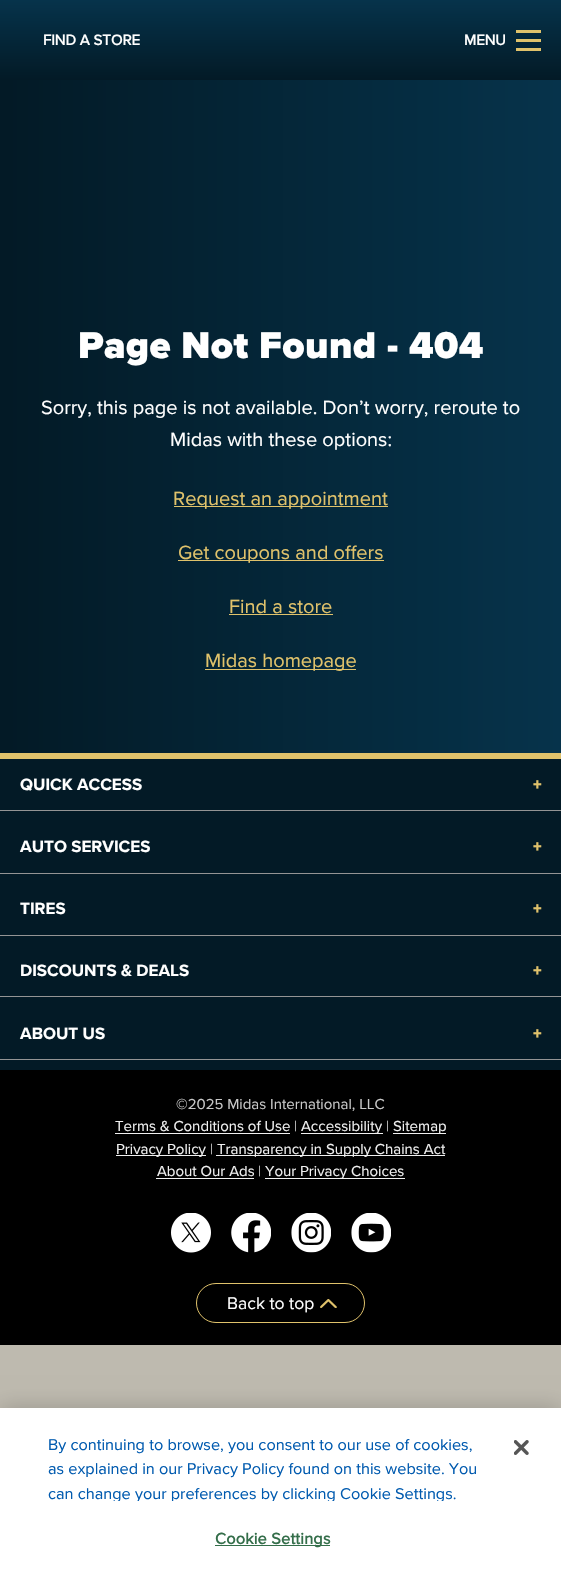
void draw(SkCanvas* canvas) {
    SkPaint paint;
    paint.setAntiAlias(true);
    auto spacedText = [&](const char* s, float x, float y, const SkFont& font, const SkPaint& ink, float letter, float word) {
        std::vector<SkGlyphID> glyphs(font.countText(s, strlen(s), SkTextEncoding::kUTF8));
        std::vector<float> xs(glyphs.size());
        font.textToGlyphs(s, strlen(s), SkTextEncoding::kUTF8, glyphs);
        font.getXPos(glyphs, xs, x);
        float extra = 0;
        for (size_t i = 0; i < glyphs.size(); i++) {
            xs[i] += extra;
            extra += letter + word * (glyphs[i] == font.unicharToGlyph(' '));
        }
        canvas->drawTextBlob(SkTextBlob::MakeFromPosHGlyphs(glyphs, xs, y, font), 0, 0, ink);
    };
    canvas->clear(0xFFBEBAAF);
    {
        const SkColor colors[] = {0xFF06334B, 0xFF031A26};
        const float stops[] = {0, 1};
        const SkPoint ends[] = {{281, 0}, {281, 80}};
        paint.setShader(SkGradientShader::MakeLinear(ends, colors, stops, 2, SkTileMode::kClamp));
        paint.setAlpha(255);
    }
    canvas->drawRect(SkRect::MakeXYWH(0, 0, 561, 80), paint);
    SkFont font1(fontMgr->matchFamilyStyle("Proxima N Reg", SkFontStyle::Bold()), 15);
    font1.setSubpixel(true);
    paint.setShader(nullptr);
    paint.setColor(0xFFFFFFFF);
    canvas->drawString("FIND A STORE", 43, 45, font1, paint);
    canvas->drawString("MENU", 464, 45, font1, paint);
    paint.setColor(0xFFE0C26B);
    canvas->drawRect(SkRect::MakeXYWH(516, 48, 25, 3), paint);
    canvas->drawRect(SkRect::MakeXYWH(516, 39, 25, 3), paint);
    canvas->drawRect(SkRect::MakeXYWH(516, 30, 25, 3), paint);
    {
        const SkColor colors[] = {0xFF031A26, 0xFF06334B};
        const float stops[] = {0.01f, 1};
        const SkPoint ends[] = {{0, 416}, {561, 416}};
        paint.setShader(SkGradientShader::MakeLinear(ends, colors, stops, 2, SkTileMode::kClamp));
        paint.setAlpha(255);
    }
    canvas->drawRect(SkRect::MakeXYWH(0, 80, 561, 673), paint);
    SkFont font2(fontMgr->matchFamilyStyle("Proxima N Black", SkFontStyle(900, SkFontStyle::kNormal_Width, SkFontStyle::kUpright_Slant)), 38.75f);
    font2.setSubpixel(true);
    paint.setShader(nullptr);
    paint.setColor(0xFFFFFFFF);
    spacedText("Page Not Found - 404", 78, 358, font2, paint, 0.4f, 0);
    SkFont font3(fontMgr->matchFamilyStyle("Proxima N Reg", SkFontStyle::Normal()), 20);
    font3.setSubpixel(true);
    canvas->drawString("Sorry, this page is not available. Don’t worry, reroute to", 41, 414, font3, paint);
    canvas->drawString("Midas with these options:", 170, 446, font3, paint);
    paint.setColor(0xFFE0C26B);
    canvas->drawRect(SkRect::MakeXYWH(174, 506, 214, 1), paint);
    canvas->drawString("Request an appointment", 173, 505, font3, paint);
    canvas->drawRect(SkRect::MakeXYWH(178, 560, 206, 1), paint);
    canvas->drawString("Get coupons and offers", 178, 559, font3, paint);
    canvas->drawString("Find a store", 229, 613, font3, paint);
    canvas->drawRect(SkRect::MakeXYWH(229, 614, 104, 1), paint);
    canvas->drawRect(SkRect::MakeXYWH(205, 669, 151, 1), paint);
    canvas->drawString("Midas homepage", 205, 667, font3, paint);
    paint.setColor(0xFF031A26);
    canvas->drawRect(SkRect::MakeXYWH(0, 759, 561, 311), paint);
    paint.setColor(0xFFE0C26B);
    canvas->drawRect(SkRect::MakeXYWH(0, 753, 561, 6), paint);
    paint.setColor(0xFF949494);
    canvas->drawRect(SkRect::MakeXYWH(0, 810, 561, 1), paint);
    SkFont font4(fontMgr->matchFamilyStyle("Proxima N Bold", SkFontStyle::Bold()), 17);
    font4.setSubpixel(true);
    paint.setColor(0xFFFFFFFF);
    canvas->drawString("QUICK ACCESS", 20, 790, font4, paint);
    SkFont font5(fontMgr->matchFamilyStyle("Proxima N Black", SkFontStyle(900, SkFontStyle::kNormal_Width, SkFontStyle::kUpright_Slant)), 17);
    font5.setSubpixel(true);
    paint.setColor(0xFFE0C26B);
    canvas->drawString("+", 533, 790, font5, paint);
    paint.setColor(0xFF949494);
    canvas->drawRect(SkRect::MakeXYWH(0, 873, 561, 1), paint);
    paint.setColor(0xFFFFFFFF);
    canvas->drawString("AUTO SERVICES", 20, 852, font4, paint);
    paint.setColor(0xFFE0C26B);
    canvas->drawString("+", 533, 852, font5, paint);
    paint.setColor(0xFF949494);
    canvas->drawRect(SkRect::MakeXYWH(0, 935, 561, 1), paint);
    paint.setColor(0xFFFFFFFF);
    canvas->drawString("TIRES", 20, 914, font4, paint);
    paint.setColor(0xFFE0C26B);
    canvas->drawString("+", 533, 914, font5, paint);
    paint.setColor(0xFF949494);
    canvas->drawRect(SkRect::MakeXYWH(0, 996, 561, 1), paint);
    paint.setColor(0xFFFFFFFF);
    canvas->drawString("DISCOUNTS & DEALS", 20, 976, font4, paint);
    paint.setColor(0xFFE0C26B);
    canvas->drawString("+", 533, 976, font5, paint);
    paint.setColor(0xFF949494);
    canvas->drawRect(SkRect::MakeXYWH(0, 1059, 561, 1), paint);
    paint.setColor(0xFFFFFFFF);
    canvas->drawString("ABOUT US", 20, 1039, font4, paint);
    paint.setColor(0xFFE0C26B);
    canvas->drawString("+", 533, 1039, font5, paint);
    paint.setColor(0xFF000000);
    canvas->drawRect(SkRect::MakeXYWH(0, 1070, 561, 275), paint);
    SkFont font6(fontMgr->matchFamilyStyle("Proxima N Reg", SkFontStyle::Normal()), 15);
    font6.setSubpixel(true);
    paint.setColor(0xFFC8C8C8);
    canvas->drawString("©2025 Midas International, LLC", 176, 1109, font6, paint);
    paint.setColor(0xFFF0F0F0);
    canvas->drawString("Terms & Conditions of Use", 115, 1131, font6, paint);
    canvas->drawRect(SkRect::MakeXYWH(115, 1133, 175, 1), paint);
    paint.setColor(0xFFC8C8C8);
    canvas->drawString("|", 294, 1131, font6, paint);
    paint.setColor(0xFFF0F0F0);
    canvas->drawRect(SkRect::MakeXYWH(301, 1133, 82, 1), paint);
    canvas->drawString("Accessibility", 301, 1131, font6, paint);
    paint.setColor(0xFFC8C8C8);
    canvas->drawString("|", 386, 1131, font6, paint);
    paint.setColor(0xFFF0F0F0);
    canvas->drawRect(SkRect::MakeXYWH(393, 1133, 53, 1), paint);
    canvas->drawString("Sitemap", 393, 1131, font6, paint);
    canvas->drawRect(SkRect::MakeXYWH(116, 1155, 90, 1), paint);
    canvas->drawString("Privacy Policy", 116, 1154, font6, paint);
    paint.setColor(0xFFC8C8C8);
    canvas->drawString("|", 210, 1154, font6, paint);
    paint.setColor(0xFFF0F0F0);
    canvas->drawRect(SkRect::MakeXYWH(216, 1155, 229, 1), paint);
    canvas->drawString("Transparency in Supply Chains Act", 217, 1154, font6, paint);
    canvas->drawString("About Our Ads", 157, 1176, font6, paint);
    canvas->drawRect(SkRect::MakeXYWH(156, 1178, 98, 1), paint);
    paint.setColor(0xFFC8C8C8);
    canvas->drawString("|", 258, 1176, font6, paint);
    paint.setColor(0xFFF0F0F0);
    canvas->drawRect(SkRect::MakeXYWH(265, 1178, 140, 1), paint);
    canvas->drawString("Your Privacy Choices", 265, 1176, font6, paint);
    canvas->drawImageRect(SkImages::DeferredFromEncodedData(SkData::MakeFromFileName("img1.png")), SkRect::MakeXYWH(171, 1213, 40, 40), SkSamplingOptions());
    canvas->drawImageRect(SkImages::DeferredFromEncodedData(SkData::MakeFromFileName("img2.png")), SkRect::MakeXYWH(231, 1213, 40, 40), SkSamplingOptions());
    canvas->drawImageRect(SkImages::DeferredFromEncodedData(SkData::MakeFromFileName("img3.png")), SkRect::MakeXYWH(291, 1213, 40, 40), SkSamplingOptions());
    canvas->drawImageRect(SkImages::DeferredFromEncodedData(SkData::MakeFromFileName("img4.png")), SkRect::MakeXYWH(351, 1213, 40, 40), SkSamplingOptions());
    paint.setStyle(SkPaint::kStroke_Style);
    paint.setStrokeWidth(1);
    paint.setColor(0xFFE0C26B);
    canvas->drawRoundRect(SkRect::MakeXYWH(196.5f, 1283.5f, 168, 39), 19.5f, 19.5f, paint);
    SkFont font7(fontMgr->matchFamilyStyle("Proxima N Reg", SkFontStyle::Normal()), 17.5f);
    font7.setSubpixel(true);
    paint.setStyle(SkPaint::kFill_Style);
    paint.setColor(0xFFFFFFFF);
    canvas->drawString("Back to top", 227, 1309, font7, paint);
    canvas->drawImageRect(SkImages::DeferredFromEncodedData(SkData::MakeFromFileName("img5.png")), SkRect::MakeXYWH(320, 1299, 17, 9), SkSamplingOptions());
    paint.setColor(0x33000000);
    paint.setMaskFilter(SkMaskFilter::MakeBlur(kNormal_SkBlurStyle, 11));
    canvas->drawRect(SkRect::MakeXYWH(0, 1408, 561, 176), paint);
    paint.setMaskFilter(nullptr);
    paint.setColor(0xFFFFFFFF);
    canvas->drawRect(SkRect::MakeXYWH(0, 1408, 561, 175), paint);
    SkFont font8(fontMgr->matchFamilyStyle("Proxima N Reg", SkFontStyle::Normal()), 16.25f);
    font8.setSubpixel(true);
    paint.setColor(0xFF005AAF);
    canvas->drawString("By continuing to browse, you consent to our use of cookies,", 48, 1450, font8, paint);
    canvas->drawString("as explained in our Privacy Policy found on this website. You", 48, 1474, font8, paint);
    canvas->save();
    canvas->clipRect(SkRect::MakeXYWH(48, 1433, 440, 68));
    canvas->drawString("can change your preferences by clicking Cookie Settings.", 48, 1499, font8, paint);
    canvas->restore();
    paint.setColor(0xFF346E4A);
    canvas->drawRect(SkRect::MakeXYWH(215, 1545, 115, 1), paint);
    SkFont font9(fontMgr->matchFamilyStyle("Proxima N Reg", SkFontStyle::Bold()), 16.25f);
    font9.setSubpixel(true);
    spacedText("Cookie Settings", 215, 1544, font9, paint, 0.2f, 0);
    canvas->drawImageRect(SkImages::DeferredFromEncodedData(SkData::MakeFromFileName("img6.png")), SkRect::MakeXYWH(514, 1440, 15, 15), SkSamplingOptions());
}
